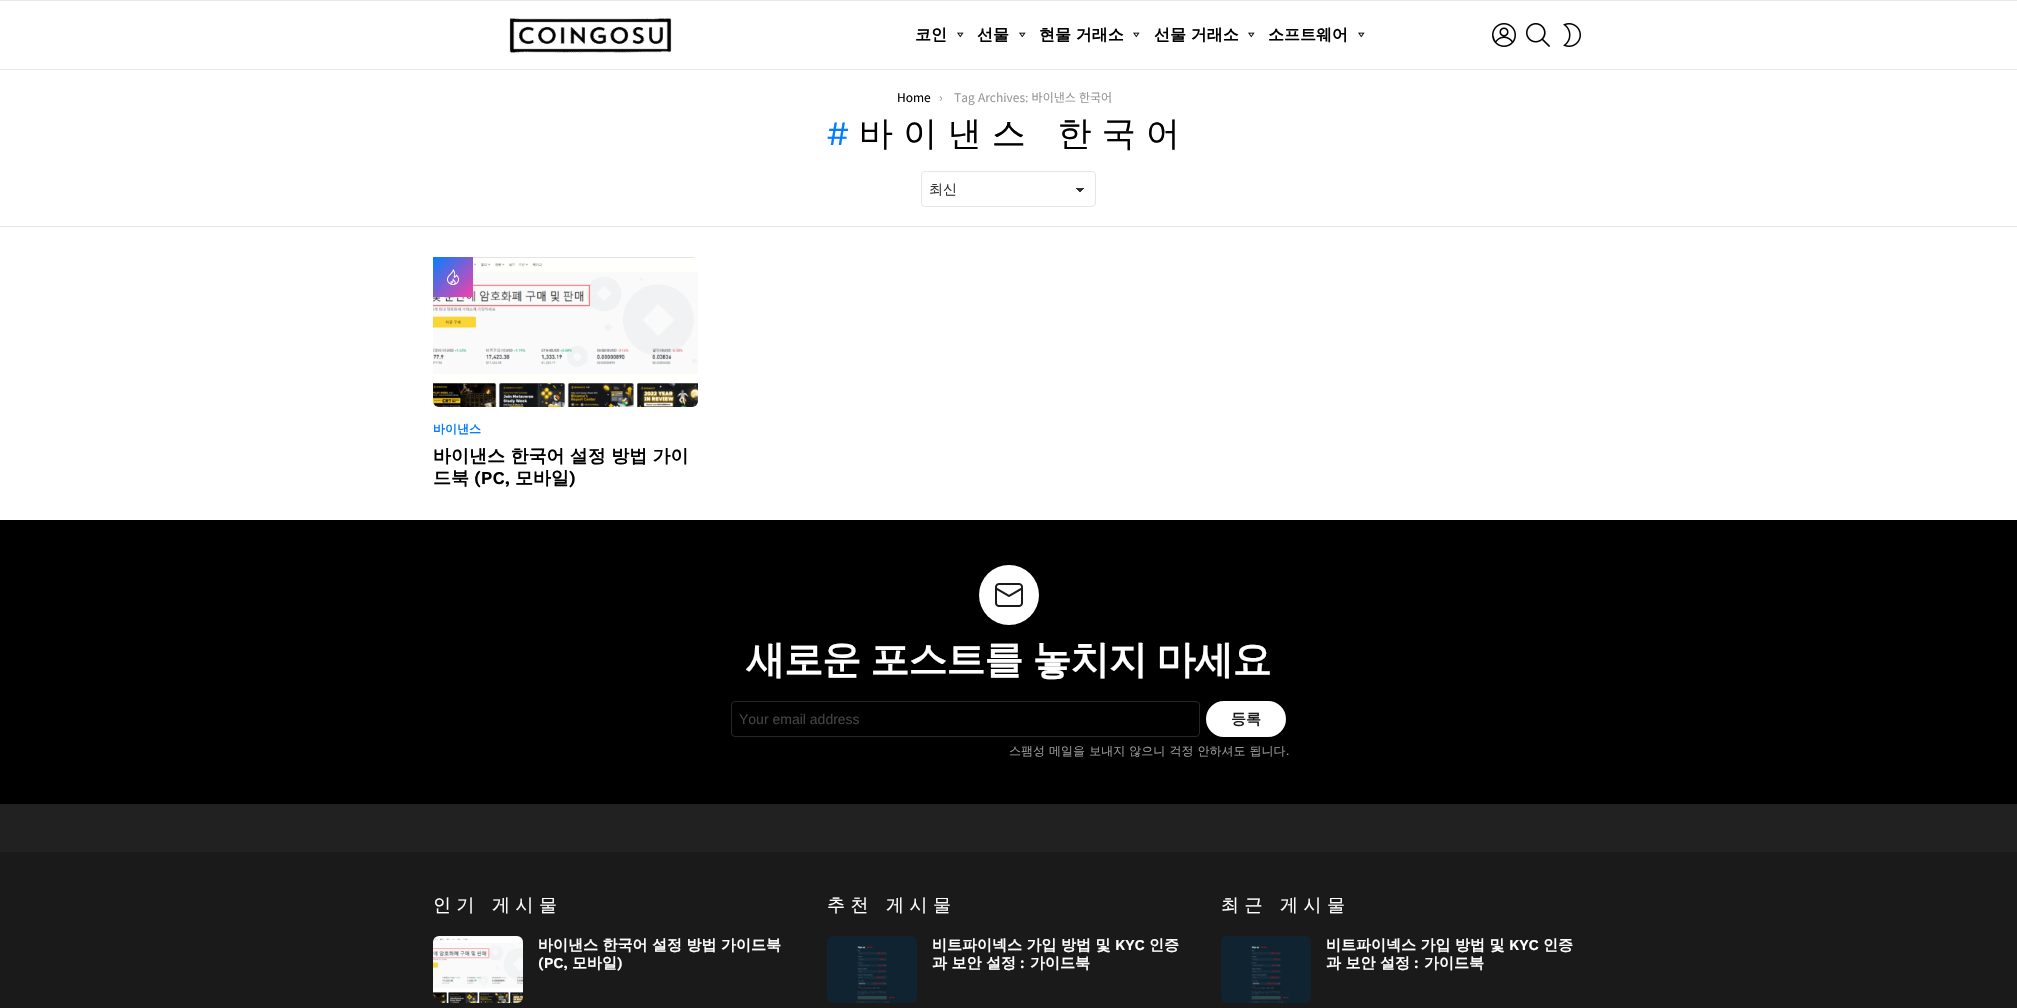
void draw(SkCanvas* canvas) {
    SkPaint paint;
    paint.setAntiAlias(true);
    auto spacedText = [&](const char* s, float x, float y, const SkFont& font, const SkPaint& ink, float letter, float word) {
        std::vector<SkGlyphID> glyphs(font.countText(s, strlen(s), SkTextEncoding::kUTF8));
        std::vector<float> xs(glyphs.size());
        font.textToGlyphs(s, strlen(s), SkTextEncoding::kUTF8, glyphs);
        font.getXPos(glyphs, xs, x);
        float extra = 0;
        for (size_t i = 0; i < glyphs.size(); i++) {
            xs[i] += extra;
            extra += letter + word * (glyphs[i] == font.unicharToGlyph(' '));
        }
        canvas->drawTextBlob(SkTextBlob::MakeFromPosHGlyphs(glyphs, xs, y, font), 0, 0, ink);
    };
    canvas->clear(0xFFFFFFFF);
    paint.setColor(0xFFE9E9E9);
    canvas->drawRect(SkRect::MakeXYWH(0, 0, 2017, 1), paint);
    canvas->drawImageRect(SkImages::DeferredFromEncodedData(SkData::MakeFromFileName("img1.png")), SkRect::MakeXYWH(509, 18, 163, 35), SkSamplingOptions());
    SkFont font1(fontMgr->matchFamilyStyle("WenQuanYi Zen Hei", SkFontStyle::Bold()), 16);
    font1.setSubpixel(true);
    paint.setColor(0xFF000000);
    canvas->drawString("코인", 915, 40, font1, paint);
    canvas->drawImageRect(SkImages::DeferredFromEncodedData(SkData::MakeFromFileName("img2.png")), SkRect::MakeXYWH(957, 32, 7, 6), SkSamplingOptions());
    canvas->drawString("선물", 977, 40, font1, paint);
    canvas->drawImageRect(SkImages::DeferredFromEncodedData(SkData::MakeFromFileName("img2.png")), SkRect::MakeXYWH(1019, 32, 7, 6), SkSamplingOptions());
    canvas->drawString("현물 거래소", 1039, 40, font1, paint);
    canvas->drawImageRect(SkImages::DeferredFromEncodedData(SkData::MakeFromFileName("img2.png")), SkRect::MakeXYWH(1133, 32, 7, 6), SkSamplingOptions());
    canvas->drawString("선물 거래소", 1154, 40, font1, paint);
    canvas->drawImageRect(SkImages::DeferredFromEncodedData(SkData::MakeFromFileName("img2.png")), SkRect::MakeXYWH(1248, 32, 7, 6), SkSamplingOptions());
    canvas->drawString("소프트웨어", 1268, 40, font1, paint);
    canvas->drawImageRect(SkImages::DeferredFromEncodedData(SkData::MakeFromFileName("img2.png")), SkRect::MakeXYWH(1358, 32, 7, 6), SkSamplingOptions());
    canvas->drawImageRect(SkImages::DeferredFromEncodedData(SkData::MakeFromFileName("img3.png")), SkRect::MakeXYWH(1492, 23, 24, 24), SkSamplingOptions());
    canvas->drawImageRect(SkImages::DeferredFromEncodedData(SkData::MakeFromFileName("img4.png")), SkRect::MakeXYWH(1526, 23, 24, 24), SkSamplingOptions());
    canvas->drawImageRect(SkImages::DeferredFromEncodedData(SkData::MakeFromFileName("img5.png")), SkRect::MakeXYWH(1563, 23, 18, 24), SkSamplingOptions());
    paint.setColor(0xFFE9E9E9);
    canvas->drawRect(SkRect::MakeXYWH(0, 69, 2017, 1), paint);
    SkFont font2(fontMgr->matchFamilyStyle("Noto Sans KR", SkFontStyle::Normal()), 12);
    font2.setSubpixel(true);
    paint.setColor(0xFF000000);
    canvas->drawString("Home", 897, 102, font2, paint);
    paint.setColor(0xFF999999);
    canvas->drawString("›", 939, 102, font2, paint);
    spacedText("Tag Archives: 바이낸스 한국어", 954, 102, font2, paint, 0, 0.5f);
    SkFont font3(fontMgr->matchFamilyStyle("Work Sans", SkFontStyle::Normal()), 34);
    font3.setSubpixel(true);
    paint.setColor(0xFF057DFF);
    spacedText("#", 827, 145, font3, paint, 10.25f, 0);
    SkFont font4(fontMgr->matchFamilyStyle("WenQuanYi Zen Hei", SkFontStyle(500, SkFontStyle::kNormal_Width, SkFontStyle::kUpright_Slant)), 34);
    font4.setSubpixel(true);
    paint.setColor(0xFF000000);
    spacedText("바이낸스 한국어", 859, 145, font4, paint, 10.25f, 1);
    {
        const SkColor colors[] = {0xFF333333, 0xFFFFFFFF};
        const float stops[] = {0.5f, 0.5f};
        const SkPoint ends[] = {{1080, 188}, {1085, 192}};
        paint.setShader(SkGradientShader::MakeLinear(ends, colors, stops, 2, SkTileMode::kClamp));
        paint.setAlpha(255);
    }
    canvas->drawRect(SkRect::MakeXYWH(1080, 188, 5, 4), paint);
    {
        const SkColor colors[] = {0xFFFFFFFF, 0xFF333333};
        const float stops[] = {0.5f, 0.5f};
        const SkPoint ends[] = {{1075, 192}, {1080, 188}};
        paint.setShader(SkGradientShader::MakeLinear(ends, colors, stops, 2, SkTileMode::kClamp));
        paint.setAlpha(255);
    }
    canvas->drawRect(SkRect::MakeXYWH(1075, 188, 5, 4), paint);
    paint.setStyle(SkPaint::kStroke_Style);
    paint.setStrokeWidth(1);
    paint.setShader(nullptr);
    paint.setColor(0xFFE6E6E6);
    canvas->drawRoundRect(SkRect::MakeXYWH(921.5f, 171.5f, 174, 35), 3.5f, 3.5f, paint);
    SkFont font5(fontMgr->matchFamilyStyle("WenQuanYi Zen Hei", SkFontStyle(500, SkFontStyle::kNormal_Width, SkFontStyle::kUpright_Slant)), 14);
    font5.setSubpixel(true);
    paint.setStyle(SkPaint::kFill_Style);
    paint.setColor(0xFF333333);
    canvas->drawString("최신", 929, 194, font5, paint);
    paint.setColor(0xFFE6E6E6);
    canvas->drawRect(SkRect::MakeXYWH(0, 226, 2017, 1), paint);
    canvas->drawImageRect(SkImages::DeferredFromEncodedData(SkData::MakeFromFileName("img6.png")), SkRect::MakeXYWH(433, 257, 265, 150), SkSamplingOptions());
    {
        const SkColor colors[] = {0xFF057DFF, 0xFFF840A7};
        const float stops[] = {0, 1};
        const SkPoint ends[] = {{433, 257}, {473, 297}};
        paint.setShader(SkGradientShader::MakeLinear(ends, colors, stops, 2, SkTileMode::kClamp));
        paint.setAlpha(255);
    }
    canvas->drawRect(SkRect::MakeXYWH(433, 257, 40, 40), paint);
    canvas->drawImageRect(SkImages::DeferredFromEncodedData(SkData::MakeFromFileName("img7.png")), SkRect::MakeXYWH(447, 269, 12, 16), SkSamplingOptions());
    SkFont font6(fontMgr->matchFamilyStyle("WenQuanYi Zen Hei", SkFontStyle::Bold()), 12);
    font6.setSubpixel(true);
    paint.setShader(nullptr);
    paint.setColor(0xFF057DFF);
    canvas->drawString("바이낸스", 433, 433, font6, paint);
    SkFont font7(fontMgr->matchFamilyStyle("WenQuanYi Zen Hei", SkFontStyle::Bold()), 18);
    font7.setSubpixel(true);
    paint.setColor(0xFF000000);
    canvas->drawString("바이낸스 한국어 설정 방법 가이", 433, 462, font7, paint);
    canvas->drawString("드북", 433, 484, font7, paint);
    SkFont font8(fontMgr->matchFamilyStyle("Work Sans", SkFontStyle(600, SkFontStyle::kNormal_Width, SkFontStyle::kUpright_Slant)), 18);
    font8.setSubpixel(true);
    canvas->drawString("(PC,", 474, 484, font8, paint);
    canvas->drawString("모바일", 515, 484, font7, paint);
    canvas->drawString(")", 569, 484, font8, paint);
    canvas->drawRect(SkRect::MakeXYWH(0, 520, 2017, 284), paint);
    paint.setColor(0xFFFFFFFF);
    canvas->drawCircle(1009, 595, 30, paint);
    canvas->drawImageRect(SkImages::DeferredFromEncodedData(SkData::MakeFromFileName("img8.png")), SkRect::MakeXYWH(995, 583, 28, 24), SkSamplingOptions());
    SkFont font9(fontMgr->matchFamilyStyle("WenQuanYi Zen Hei", SkFontStyle::Bold()), 39);
    font9.setSubpixel(true);
    spacedText("새로운 포스트를 놓치지 마세요", 746, 673, font9, paint, -1, -0.5f);
    paint.setStyle(SkPaint::kStroke_Style);
    paint.setColor(0xFF262626);
    canvas->drawRoundRect(SkRect::MakeXYWH(731.5f, 701.5f, 468, 35), 3.5f, 3.5f, paint);
    SkFont font10(fontMgr->matchFamilyStyle("Liberation Sans", SkFontStyle::Normal()), 14);
    font10.setSubpixel(true);
    paint.setStyle(SkPaint::kFill_Style);
    paint.setColor(0xFF434343);
    canvas->drawString("Your email address", 739, 724, font10, paint);
    paint.setColor(0xFFFFFFFF);
    canvas->drawRoundRect(SkRect::MakeXYWH(1207, 702, 78, 34), 17, 17, paint);
    paint.setStyle(SkPaint::kStroke_Style);
    paint.setStrokeWidth(2);
    canvas->drawRoundRect(SkRect::MakeXYWH(1207, 702, 78, 34), 17, 17, paint);
    SkFont font11(fontMgr->matchFamilyStyle("WenQuanYi Zen Hei", SkFontStyle::Bold()), 15);
    font11.setSubpixel(true);
    paint.setStyle(SkPaint::kFill_Style);
    paint.setColor(0xFF1A1A1A);
    canvas->drawString("등록", 1231, 724, font11, paint);
    SkFont font12(fontMgr->matchFamilyStyle("WenQuanYi Zen Hei", SkFontStyle(500, SkFontStyle::kNormal_Width, SkFontStyle::kUpright_Slant)), 12);
    font12.setSubpixel(true);
    paint.setColor(0xFF999999);
    spacedText("스팸성 메일을 보내지 않으니 걱정 안하셔도 됩니다", 1009, 755, font12, paint, 0, 0.5f);
    SkFont font13(fontMgr->matchFamilyStyle("Work Sans", SkFontStyle::Normal()), 12);
    font13.setSubpixel(true);
    canvas->drawString(".", 1286, 755, font13, paint);
    paint.setColor(0xFF212121);
    canvas->drawRect(SkRect::MakeXYWH(0, 804, 2017, 48), paint);
    paint.setColor(0xFF1A1A1A);
    canvas->drawRect(SkRect::MakeXYWH(0, 852, 2017, 156), paint);
    SkFont font14(fontMgr->matchFamilyStyle("WenQuanYi Zen Hei", SkFontStyle(500, SkFontStyle::kNormal_Width, SkFontStyle::kUpright_Slant)), 18);
    font14.setSubpixel(true);
    paint.setColor(0xFFFFFFFF);
    spacedText("인기 게시물", 433, 911, font14, paint, 5.5f, 1);
    canvas->drawImageRect(SkImages::DeferredFromEncodedData(SkData::MakeFromFileName("img9.png")), SkRect::MakeXYWH(433, 936, 90, 67), SkSamplingOptions());
    canvas->drawString("바이낸스 한국어 설정 방법 가이드북", 538, 950, font11, paint);
    SkFont font15(fontMgr->matchFamilyStyle("Work Sans", SkFontStyle(600, SkFontStyle::kNormal_Width, SkFontStyle::kUpright_Slant)), 15);
    font15.setSubpixel(true);
    canvas->drawString("(PC,", 538, 968, font15, paint);
    canvas->drawString("모바일", 572, 968, font11, paint);
    canvas->drawString(")", 617, 968, font15, paint);
    spacedText("추천 게시물", 827, 911, font14, paint, 5.5f, 1);
    canvas->drawImageRect(SkImages::DeferredFromEncodedData(SkData::MakeFromFileName("img10.png")), SkRect::MakeXYWH(827, 936, 90, 67), SkSamplingOptions());
    canvas->drawString("비트파이넥스 가입 방법 및", 932, 950, font11, paint);
    canvas->drawString("KYC", 1115, 950, font15, paint);
    canvas->drawString("인증", 1149, 950, font11, paint);
    canvas->drawString("과 보안 설정", 932, 968, font11, paint);
    canvas->drawString(":", 1020, 968, font15, paint);
    canvas->drawString("가이드북", 1030, 968, font11, paint);
    spacedText("최근 게시물", 1221, 911, font14, paint, 5.5f, 1);
    canvas->drawImageRect(SkImages::DeferredFromEncodedData(SkData::MakeFromFileName("img10.png")), SkRect::MakeXYWH(1221, 936, 90, 67), SkSamplingOptions());
    canvas->drawString("비트파이넥스 가입 방법 및", 1326, 950, font11, paint);
    canvas->drawString("KYC", 1509, 950, font15, paint);
    canvas->drawString("인증", 1543, 950, font11, paint);
    canvas->drawString("과 보안 설정", 1326, 968, font11, paint);
    canvas->drawString(":", 1414, 968, font15, paint);
    canvas->drawString("가이드북", 1424, 968, font11, paint);
}
